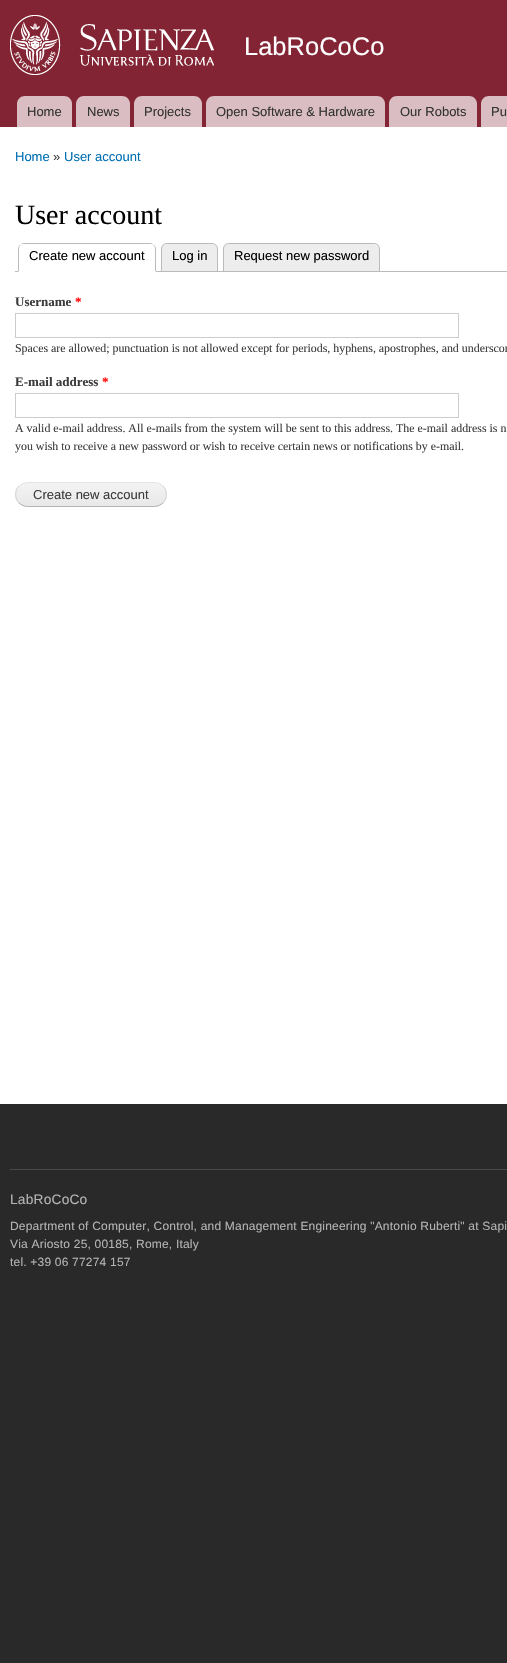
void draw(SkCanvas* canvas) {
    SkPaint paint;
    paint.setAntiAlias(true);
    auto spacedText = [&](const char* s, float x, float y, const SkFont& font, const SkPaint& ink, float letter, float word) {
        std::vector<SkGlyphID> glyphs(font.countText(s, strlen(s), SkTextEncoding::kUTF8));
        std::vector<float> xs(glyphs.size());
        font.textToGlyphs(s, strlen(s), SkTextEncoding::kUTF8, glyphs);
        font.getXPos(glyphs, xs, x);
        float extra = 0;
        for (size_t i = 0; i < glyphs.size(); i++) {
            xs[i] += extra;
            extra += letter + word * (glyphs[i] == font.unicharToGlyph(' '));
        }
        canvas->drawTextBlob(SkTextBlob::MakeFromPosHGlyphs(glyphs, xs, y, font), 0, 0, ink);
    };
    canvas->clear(0xFF292929);
    paint.setColor(0xFFFFFFFF);
    canvas->drawRect(SkRect::MakeXYWH(0, 127, 507, 977), paint);
    paint.setColor(0xFF822433);
    canvas->drawRect(SkRect::MakeXYWH(0, 0, 507, 127), paint);
    canvas->drawImageRect(SkImages::DeferredFromEncodedData(SkData::MakeFromFileName("img1.png")), SkRect::MakeXYWH(10, 15, 204, 60), SkSamplingOptions());
    SkFont font1(fontMgr->matchFamilyStyle("Liberation Sans", SkFontStyle::Normal()), 25.5f);
    font1.setSubpixel(true);
    paint.setColor(0xFFFFFEFF);
    canvas->drawString("LabRoCoCo", 244, 55, font1, paint);
    paint.setColor(0xFFDABDC2);
    canvas->drawPath(SkPathBuilder().moveTo(25, 96).lineTo(64, 96).cubicTo(68.5f, 96, 72, 99.5f, 72, 104).lineTo(72, 127).lineTo(17, 127).lineTo(17, 104).cubicTo(17, 99.5f, 20.5f, 96, 25, 96).close().detach(), paint);
    SkFont font2(fontMgr->matchFamilyStyle("Liberation Sans", SkFontStyle::Normal()), 13);
    font2.setSubpixel(true);
    paint.setColor(0xFF333333);
    canvas->drawString("Home", 27, 116, font2, paint);
    paint.setColor(0xFFDABDC2);
    canvas->drawPath(SkPathBuilder().moveTo(84, 96).lineTo(122, 96).cubicTo(126.5f, 96, 130, 99.5f, 130, 104).lineTo(130, 127).lineTo(76, 127).lineTo(76, 104).cubicTo(76, 99.5f, 79.5f, 96, 84, 96).close().detach(), paint);
    paint.setColor(0xFF333333);
    canvas->drawString("News", 87, 116, font2, paint);
    paint.setColor(0xFFDABDC2);
    canvas->drawPath(SkPathBuilder().moveTo(142, 96).lineTo(194, 96).cubicTo(198.5f, 96, 202, 99.5f, 202, 104).lineTo(202, 127).lineTo(134, 127).lineTo(134, 104).cubicTo(134, 99.5f, 137.5f, 96, 142, 96).close().detach(), paint);
    paint.setColor(0xFF333333);
    canvas->drawString("Projects", 144, 116, font2, paint);
    paint.setColor(0xFFDABDC2);
    canvas->drawPath(SkPathBuilder().moveTo(214, 96).lineTo(377, 96).cubicTo(381.5f, 96, 385, 99.5f, 385, 104).lineTo(385, 127).lineTo(206, 127).lineTo(206, 104).cubicTo(206, 99.5f, 209.5f, 96, 214, 96).close().detach(), paint);
    paint.setColor(0xFF333333);
    canvas->drawString("Open Software & Hardware", 216, 116, font2, paint);
    paint.setColor(0xFFDABDC2);
    canvas->drawPath(SkPathBuilder().moveTo(397, 96).lineTo(469, 96).cubicTo(473.5f, 96, 477, 99.5f, 477, 104).lineTo(477, 127).lineTo(389, 127).lineTo(389, 104).cubicTo(389, 99.5f, 392.5f, 96, 397, 96).close().detach(), paint);
    paint.setColor(0xFF333333);
    canvas->drawString("Our Robots", 400, 116, font2, paint);
    paint.setColor(0xFFDABDC2);
    canvas->drawPath(SkPathBuilder().moveTo(489, 96).lineTo(507, 96).cubicTo(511.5f, 96, 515, 99.5f, 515, 104).lineTo(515, 127).lineTo(481, 127).lineTo(481, 104).cubicTo(481, 99.5f, 484.5f, 96, 489, 96).close().detach(), paint);
    paint.setColor(0xFF333333);
    canvas->drawString("Pu", 491, 116, font2, paint);
    paint.setColor(0xFF0070B3);
    canvas->drawString("Home", 15, 161, font2, paint);
    paint.setColor(0xFF3B3B3B);
    canvas->drawString("»", 53, 161, font2, paint);
    paint.setColor(0xFF0070B3);
    canvas->drawString("User account", 64, 161, font2, paint);
    SkFont font3(fontMgr->matchFamilyStyle("Liberation Serif", SkFontStyle::Normal()), 28);
    font3.setSubpixel(true);
    paint.setColor(0xFF000000);
    canvas->drawString("User account", 15, 224, font3, paint);
    paint.setColor(0xFFBBBBBB);
    canvas->drawRect(SkRect::MakeXYWH(15, 271, 492, 1), paint);
    paint.setColor(0xFFFFFFFF);
    canvas->drawPath(SkPathBuilder().moveTo(24, 243).lineTo(150, 243).cubicTo(153.5f, 243, 156, 245.5f, 156, 249).lineTo(156, 272).lineTo(18, 272).lineTo(18, 249).cubicTo(18, 245.5f, 20.5f, 243, 24, 243).close().detach(), paint);
    paint.setColor(0xFFBBBBBB);
    canvas->drawPath(SkPathBuilder().moveTo(24, 243).cubicTo(22, 243, 21, 244, 20, 245).cubicTo(21, 244, 22, 244, 24, 244).lineTo(150, 244).cubicTo(152, 244, 153, 244, 154, 245).cubicTo(153, 244, 152, 243, 150, 243).close().detach(), paint);
    canvas->drawPath(SkPathBuilder().moveTo(156, 272).lineTo(156, 249).cubicTo(156, 247.5f, 155, 246, 154, 245).lineTo(153.5f, 245.5f).cubicTo(154.5f, 246, 155, 247.5f, 155, 249).lineTo(155, 271).close().detach(), paint);
    paint.setColor(0xFFFFFFFF);
    canvas->drawPath(SkPathBuilder().moveTo(156, 272).lineTo(155, 271).lineTo(19, 271).lineTo(18, 272).close().detach(), paint);
    paint.setColor(0xFFBBBBBB);
    canvas->drawPath(SkPathBuilder().moveTo(18, 272).lineTo(19, 271).lineTo(19, 249).cubicTo(19, 247.5f, 19.5f, 246, 20.5f, 245.5f).lineTo(20, 245).cubicTo(19, 246, 18, 247.5f, 18, 249).close().detach(), paint);
    paint.setColor(0xFF000000);
    canvas->drawString("Create new account", 29, 260, font2, paint);
    paint.setColor(0xFFEDEDED);
    canvas->drawPath(SkPathBuilder().moveTo(167, 243).lineTo(212, 243).cubicTo(215.5f, 243, 218, 245.5f, 218, 249).lineTo(218, 271).lineTo(161, 271).lineTo(161, 249).cubicTo(161, 245.5f, 163.5f, 243, 167, 243).close().detach(), paint);
    paint.setColor(0xFFBBBBBB);
    canvas->drawPath(SkPathBuilder(SkPathFillType::kEvenOdd).moveTo(167, 243).lineTo(212, 243).cubicTo(215, 243, 218, 246, 218, 249).lineTo(218, 271).lineTo(161, 271).lineTo(161, 249).cubicTo(161, 246, 164, 243, 167, 243).close().moveTo(167, 244).lineTo(212, 244).cubicTo(215, 244, 217, 246, 217, 249).lineTo(217, 271).lineTo(162, 271).lineTo(162, 249).cubicTo(162, 246, 164, 244, 167, 244).close().detach(), paint);
    paint.setColor(0xFF000000);
    canvas->drawString("Log in", 172, 260, font2, paint);
    paint.setColor(0xFFEDEDED);
    canvas->drawPath(SkPathBuilder().moveTo(229, 243).lineTo(374, 243).cubicTo(377.5f, 243, 380, 245.5f, 380, 249).lineTo(380, 271).lineTo(223, 271).lineTo(223, 249).cubicTo(223, 245.5f, 225.5f, 243, 229, 243).close().detach(), paint);
    paint.setColor(0xFFBBBBBB);
    canvas->drawPath(SkPathBuilder(SkPathFillType::kEvenOdd).moveTo(229, 243).lineTo(374, 243).cubicTo(377, 243, 380, 246, 380, 249).lineTo(380, 271).lineTo(223, 271).lineTo(223, 249).cubicTo(223, 246, 226, 243, 229, 243).close().moveTo(229, 244).lineTo(374, 244).cubicTo(377, 244, 379, 246, 379, 249).lineTo(379, 271).lineTo(224, 271).lineTo(224, 249).cubicTo(224, 246, 226, 244, 229, 244).close().detach(), paint);
    paint.setColor(0xFF000000);
    canvas->drawString("Request new password", 234, 260, font2, paint);
    SkFont font4(fontMgr->matchFamilyStyle("Liberation Serif", SkFontStyle::Bold()), 13);
    font4.setSubpixel(true);
    paint.setColor(0xFF3B3B3B);
    canvas->drawString("Username", 15, 306, font4, paint);
    paint.setColor(0xFFFF0000);
    canvas->drawString("*", 75, 306, font4, paint);
    paint.setStyle(SkPaint::kStroke_Style);
    paint.setStrokeWidth(1);
    paint.setColor(0xFFCCCCCC);
    canvas->drawRect(SkRect::MakeXYWH(15.5f, 313.5f, 443, 24), paint);
    SkFont font5(fontMgr->matchFamilyStyle("Liberation Serif", SkFontStyle::Normal()), 11.9f);
    font5.setSubpixel(true);
    paint.setStyle(SkPaint::kFill_Style);
    paint.setColor(0xFF3B3B3B);
    canvas->drawString("Spaces are allowed; punctuation is not allowed except for periods, hyphens, apostrophes, and underscor", 15, 352, font5, paint);
    canvas->drawString("E-mail address", 15, 386, font4, paint);
    paint.setColor(0xFFFF0000);
    canvas->drawString("*", 102, 386, font4, paint);
    paint.setStyle(SkPaint::kStroke_Style);
    paint.setColor(0xFFCCCCCC);
    canvas->drawRect(SkRect::MakeXYWH(15.5f, 393.5f, 443, 24), paint);
    paint.setStyle(SkPaint::kFill_Style);
    paint.setColor(0xFF3B3B3B);
    canvas->drawString("A valid e-mail address. All e-mails from the system will be sent to this address. The e-mail address is n", 15, 432, font5, paint);
    canvas->drawString("you wish to receive a new password or wish to receive certain news or notifications by e-mail.", 15, 450, font5, paint);
    canvas->drawImageRect(SkImages::DeferredFromEncodedData(SkData::MakeFromFileName("img2.png")), SkRect::MakeXYWH(15, 483, 152, 24), SkSamplingOptions());
    paint.setStyle(SkPaint::kStroke_Style);
    paint.setColor(0xFFE4E4E4);
    canvas->drawPath(SkPathBuilder().moveTo(19, 486).cubicTo(21.5f, 484, 24.5f, 482.5f, 27.5f, 482.5f).lineTo(154.5f, 482.5f).cubicTo(157.5f, 482.5f, 160.5f, 484, 163, 486).detach(), paint);
    paint.setColor(0xFFD2D2D2);
    canvas->drawPath(SkPathBuilder().moveTo(163, 486).cubicTo(167.5f, 490.5f, 167.5f, 498.5f, 163, 503).detach(), paint);
    paint.setColor(0xFFB4B4B4);
    canvas->drawPath(SkPathBuilder().moveTo(163, 503).cubicTo(160.5f, 505, 157.5f, 506.5f, 154.5f, 506.5f).lineTo(27.5f, 506.5f).cubicTo(24.5f, 506.5f, 21.5f, 505, 19, 503).detach(), paint);
    paint.setColor(0xFFD2D2D2);
    canvas->drawPath(SkPathBuilder().moveTo(19, 503).cubicTo(14.5f, 498.5f, 14.5f, 490.5f, 19, 486).detach(), paint);
    paint.setStyle(SkPaint::kFill_Style);
    paint.setColor(0xFF3B3B3B);
    canvas->drawString("Create new account", 33, 499, font2, paint);
    paint.setColor(0xFF494949);
    canvas->drawRect(SkRect::MakeXYWH(10, 1169, 497, 1), paint);
    SkFont font6(fontMgr->matchFamilyStyle("Liberation Sans", SkFontStyle::Normal()), 13.75f);
    font6.setSubpixel(true);
    paint.setColor(0xFFB4B4B4);
    spacedText("LabRoCoCo", 10, 1204, font6, paint, 0.2f, 0);
    SkFont font7(fontMgr->matchFamilyStyle("Liberation Sans", SkFontStyle::Normal()), 12);
    font7.setSubpixel(true);
    spacedText("Department of Computer, Control, and Management Engineering \"Antonio Ruberti\" at Sapi", 10, 1230, font7, paint, 0.2f, 0);
    spacedText("Via Ariosto 25, 00185, Rome, Italy", 10, 1248, font7, paint, 0.2f, 0);
    spacedText("tel. +39 06 77274 157", 10, 1266, font7, paint, 0.2f, 0);
}
